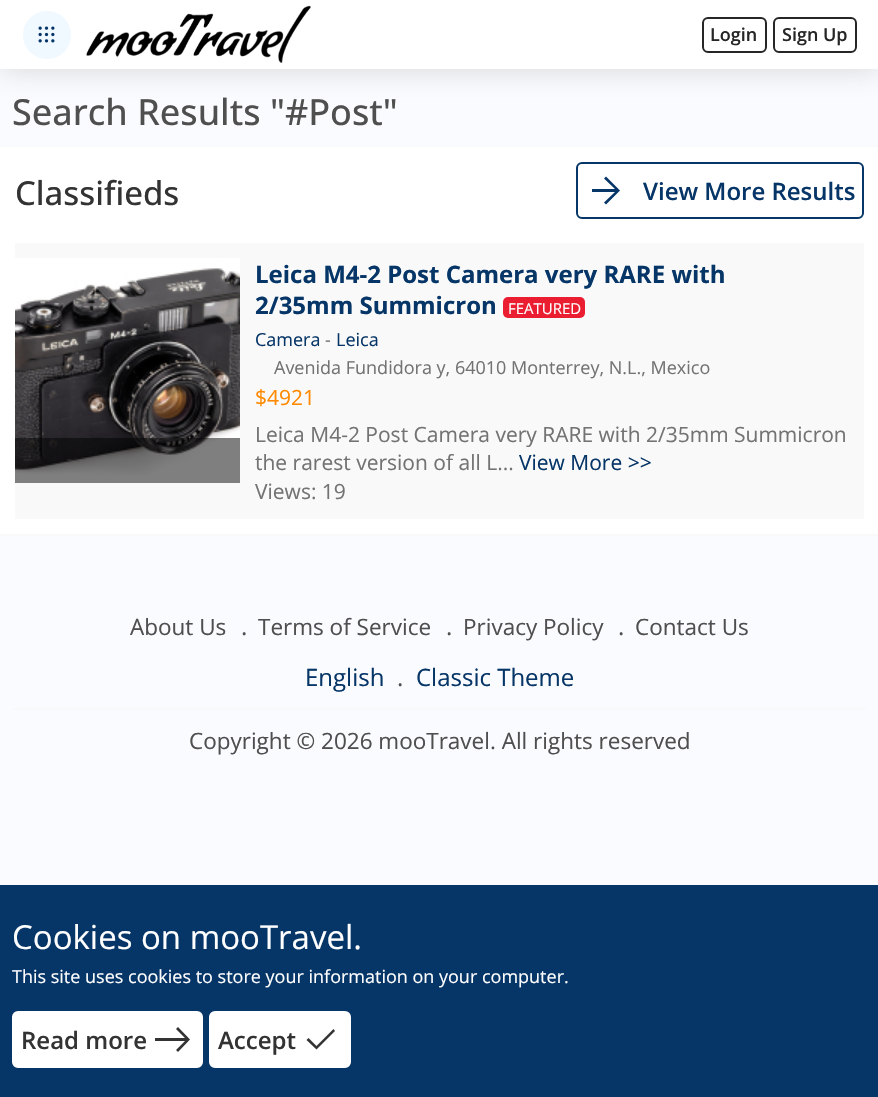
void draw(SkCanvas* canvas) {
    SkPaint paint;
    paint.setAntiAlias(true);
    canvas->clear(0xFFFAFBFE);
    paint.setColor(0x40636363);
    paint.setMaskFilter(SkMaskFilter::MakeBlur(kNormal_SkBlurStyle, 15));
    canvas->drawRect(SkRect::MakeXYWH(0, 0, 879, 69), paint);
    paint.setMaskFilter(nullptr);
    paint.setColor(0xFFFFFFFF);
    canvas->drawRect(SkRect::MakeXYWH(0, 0, 878, 69), paint);
    paint.setColor(0xFFF0F9FF);
    canvas->drawCircle(47, 35, 23, paint);
    paint.setStyle(SkPaint::kStroke_Style);
    paint.setStrokeWidth(2);
    canvas->drawCircle(47, 35, 23, paint);
    canvas->drawImageRect(SkImages::DeferredFromEncodedData(SkData::MakeFromFileName("img1.png")), SkRect::MakeXYWH(38, 26, 17, 17), SkSamplingOptions());
    canvas->drawImageRect(SkImages::DeferredFromEncodedData(SkData::MakeFromFileName("img2.png")), SkRect::MakeXYWH(86, 5, 225, 58), SkSamplingOptions());
    paint.setColor(0xFF262626);
    canvas->drawRoundRect(SkRect::MakeXYWH(703, 18, 63, 34), 5, 5, paint);
    SkFont font1(fontMgr->matchFamilyStyle("Open Sans", SkFontStyle(600, SkFontStyle::kNormal_Width, SkFontStyle::kUpright_Slant)), 18);
    font1.setSubpixel(true);
    paint.setStyle(SkPaint::kFill_Style);
    canvas->drawString("Login", 710, 41, font1, paint);
    paint.setStyle(SkPaint::kStroke_Style);
    canvas->drawRoundRect(SkRect::MakeXYWH(774, 18, 82, 34), 5, 5, paint);
    paint.setStyle(SkPaint::kFill_Style);
    canvas->drawString("Sign Up", 782, 41, font1, paint);
    SkFont font2(fontMgr->matchFamilyStyle("Open Sans", SkFontStyle(500, SkFontStyle::kNormal_Width, SkFontStyle::kUpright_Slant)), 36);
    font2.setSubpixel(true);
    paint.setColor(0xFF4F4F4F);
    canvas->drawString("Search Results \"#Post\"", 12, 125, font2, paint);
    paint.setColor(0xFFF9F9F9);
    canvas->drawRect(SkRect::MakeXYWH(0, 146, 878, 1), paint);
    canvas->drawRect(SkRect::MakeXYWH(0, 534, 878, 2), paint);
    paint.setColor(0xFFFFFFFF);
    canvas->drawRect(SkRect::MakeXYWH(0, 147, 878, 387), paint);
    SkFont font3(fontMgr->matchFamilyStyle("Open Sans", SkFontStyle(500, SkFontStyle::kNormal_Width, SkFontStyle::kUpright_Slant)), 33);
    font3.setSubpixel(true);
    paint.setColor(0xFF333333);
    canvas->drawString("Classifieds", 15, 205, font3, paint);
    paint.setStyle(SkPaint::kStroke_Style);
    paint.setColor(0xFF063567);
    canvas->drawRoundRect(SkRect::MakeXYWH(577, 163, 286, 55), 5, 5, paint);
    paint.setStyle(SkPaint::kFill_Style);
    canvas->drawPath(SkPathBuilder().moveTo(615, 192).lineTo(592, 192).lineTo(592, 189).lineTo(615, 189).lineTo(604, 178.5f).lineTo(606, 176.5f).lineTo(620, 190.5f).lineTo(606, 204.5f).lineTo(604, 202.5f).close().detach(), paint);
    SkFont font4(fontMgr->matchFamilyStyle("Open Sans", SkFontStyle(600, SkFontStyle::kNormal_Width, SkFontStyle::kUpright_Slant)), 24);
    font4.setSubpixel(true);
    canvas->drawString("View More Results", 643, 200, font4, paint);
    paint.setColor(0xFFF9F9F9);
    canvas->drawRect(SkRect::MakeXYWH(15, 243, 849, 276), paint);
    canvas->drawImageRect(SkImages::DeferredFromEncodedData(SkData::MakeFromFileName("img3.png")), SkRect::MakeXYWH(15, 258, 225, 225), SkSamplingOptions());
    paint.setColor(0x80000000);
    canvas->drawRect(SkRect::MakeXYWH(15, 438, 225, 45), paint);
    SkFont font5(fontMgr->matchFamilyStyle("Open Sans", SkFontStyle::Bold()), 24);
    font5.setSubpixel(true);
    paint.setColor(0xFF063567);
    canvas->drawString("Leica M4-2 Post Camera very RARE with", 255, 283, font5, paint);
    canvas->drawString("2/35mm Summicron", 255, 314, font5, paint);
    paint.setColor(0xFFEA1E30);
    canvas->drawRoundRect(SkRect::MakeXYWH(503, 297, 82, 21), 5, 5, paint);
    SkFont font6(fontMgr->matchFamilyStyle("Open Sans", SkFontStyle::Normal()), 15);
    font6.setSubpixel(true);
    paint.setColor(0xFFFFFFFF);
    canvas->drawString("FEATURED", 508, 314, font6, paint);
    SkFont font7(fontMgr->matchFamilyStyle("Open Sans", SkFontStyle::Normal()), 18);
    font7.setSubpixel(true);
    paint.setColor(0xFF063567);
    canvas->drawString("Camera", 255, 346, font7, paint);
    paint.setColor(0xFF737373);
    canvas->drawString("-", 325, 346, font7, paint);
    paint.setColor(0xFF063567);
    canvas->drawString("Leica", 336, 346, font7, paint);
    paint.setColor(0xFF737373);
    canvas->drawString("Avenida Fundidora y, 64010 Monterrey, N.L., Mexico", 274, 374, font7, paint);
    SkFont font8(fontMgr->matchFamilyStyle("Open Sans", SkFontStyle::Normal()), 21);
    font8.setSubpixel(true);
    paint.setColor(0xFFFF8A00);
    canvas->drawString("$4921", 255, 405, font8, paint);
    paint.setColor(0xFF737373);
    canvas->drawString("Leica M4-2 Post Camera very RARE with 2/35mm Summicron", 255, 442, font8, paint);
    canvas->drawString("the rarest version of all L...", 255, 470, font8, paint);
    paint.setColor(0xFF063567);
    canvas->drawString("View More >>", 519, 470, font8, paint);
    paint.setColor(0xFF737373);
    canvas->drawString("Views: 19", 255, 499, font8, paint);
    paint.setColor(0xFFF9F9F9);
    canvas->drawRect(SkRect::MakeXYWH(12, 708, 855, 2), paint);
    SkFont font9(fontMgr->matchFamilyStyle("Open Sans", SkFontStyle::Normal()), 22.5f);
    font9.setSubpixel(true);
    paint.setColor(0xFF4F4F4F);
    canvas->drawString("About Us", 130, 635, font9, paint);
    SkFont font10(fontMgr->matchFamilyStyle("Open Sans", SkFontStyle::Normal()), 24);
    font10.setSubpixel(true);
    canvas->drawString(".", 241, 635, font10, paint);
    canvas->drawString("Terms of Service", 258, 635, font9, paint);
    canvas->drawString(".", 446, 635, font10, paint);
    canvas->drawString("Privacy Policy", 463, 635, font9, paint);
    canvas->drawString(".", 618, 635, font10, paint);
    canvas->drawString("Contact Us", 635, 635, font9, paint);
    paint.setColor(0xFF063567);
    canvas->drawString("English", 305, 686, font10, paint);
    paint.setColor(0xFF4F4F4F);
    canvas->drawString(".", 397, 686, font10, paint);
    paint.setColor(0xFF063567);
    canvas->drawString("Classic Theme", 416, 686, font10, paint);
    paint.setColor(0xFF4F4F4F);
    canvas->drawString("Copyright © 2026 mooTravel. All rights reserved", 189, 749, font9, paint);
    paint.setColor(0xFF063567);
    canvas->drawRect(SkRect::MakeXYWH(0, 885, 878, 212), paint);
    SkFont font11(fontMgr->matchFamilyStyle("Open Sans", SkFontStyle::Normal()), 33);
    font11.setSubpixel(true);
    paint.setColor(0xFFFFFFFF);
    canvas->drawString("Cookies on mooTravel.", 12, 949, font11, paint);
    canvas->drawString("This site uses cookies to store your information on your computer.", 12, 983, font7, paint);
    canvas->drawRoundRect(SkRect::MakeXYWH(13, 1012, 189, 55), 5, 5, paint);
    paint.setStyle(SkPaint::kStroke_Style);
    canvas->drawRoundRect(SkRect::MakeXYWH(13, 1012, 189, 55), 5, 5, paint);
    paint.setStyle(SkPaint::kFill_Style);
    paint.setColor(0xFF333333);
    canvas->drawString("Read more", 21, 1049, font4, paint);
    canvas->drawPath(SkPathBuilder().moveTo(178, 1052).lineTo(176, 1050).lineTo(185, 1041).lineTo(155, 1041).lineTo(155, 1038).lineTo(185, 1038).lineTo(176, 1029).lineTo(178, 1027).lineTo(190, 1039.5f).close().detach(), paint);
    paint.setColor(0xFFFFFFFF);
    canvas->drawRoundRect(SkRect::MakeXYWH(210, 1012, 140, 55), 5, 5, paint);
    paint.setStyle(SkPaint::kStroke_Style);
    canvas->drawRoundRect(SkRect::MakeXYWH(210, 1012, 140, 55), 5, 5, paint);
    paint.setStyle(SkPaint::kFill_Style);
    paint.setColor(0xFF333333);
    canvas->drawString("Accept", 218, 1049, font4, paint);
    canvas->drawPath(SkPathBuilder().moveTo(316.5f, 1049.5f).lineTo(306.5f, 1040).lineTo(308.5f, 1038).lineTo(316.5f, 1046).lineTo(333.5f, 1029).lineTo(335, 1031).close().detach(), paint);
}
